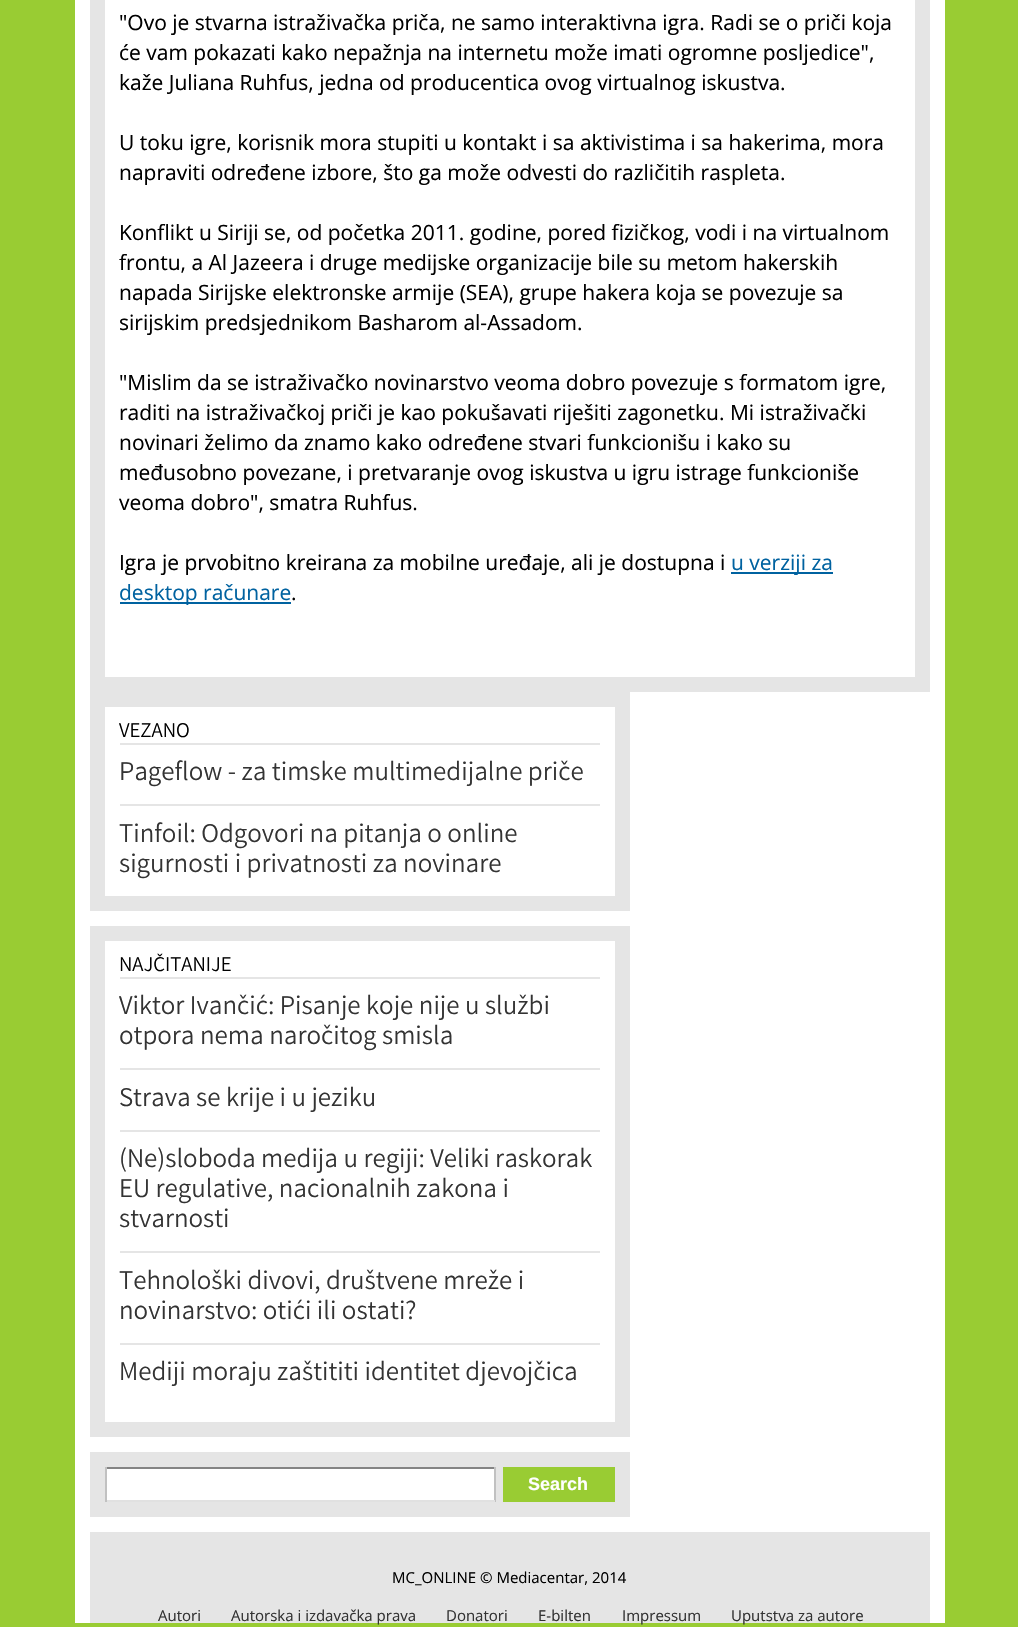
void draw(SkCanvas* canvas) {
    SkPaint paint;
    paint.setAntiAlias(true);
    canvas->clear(0xFF99CC33);
    paint.setColor(0xFFFFFFFF);
    canvas->drawRect(SkRect::MakeXYWH(75, 0, 870, 1623), paint);
    paint.setStyle(SkPaint::kStroke_Style);
    paint.setStrokeWidth(15);
    paint.setColor(0xFFE5E5E5);
    canvas->drawRect(SkRect::MakeXYWH(97.5f, -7.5f, 825, 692), paint);
    SkFont font1(fontMgr->matchFamilyStyle("Open Sans", SkFontStyle::Normal()), 21);
    font1.setSubpixel(true);
    paint.setStyle(SkPaint::kFill_Style);
    paint.setColor(0xFF000000);
    canvas->drawString("\"Ovo je stvarna istraživačka priča, ne samo interaktivna igra. Radi se o priči koja", 119, 30, font1, paint);
    canvas->drawString("će vam pokazati kako nepažnja na internetu može imati ogromne posljedice\",", 119, 60, font1, paint);
    canvas->drawString("kaže Juliana Ruhfus, jedna od producentica ovog virtualnog iskustva.", 119, 90, font1, paint);
    canvas->drawString("U toku igre, korisnik mora stupiti u kontakt i sa aktivistima i sa hakerima, mora", 119, 150, font1, paint);
    canvas->drawString("napraviti određene izbore, što ga može odvesti do različitih raspleta.", 119, 180, font1, paint);
    canvas->drawString("Konflikt u Siriji se, od početka 2011. godine, pored fizičkog, vodi i na virtualnom", 119, 240, font1, paint);
    canvas->drawString("frontu, a Al Jazeera i druge medijske organizacije bile su metom hakerskih", 119, 270, font1, paint);
    canvas->drawString("napada Sirijske elektronske armije (SEA), grupe hakera koja se povezuje sa", 119, 300, font1, paint);
    canvas->drawString("sirijskim predsjednikom Basharom al-Assadom.", 119, 330, font1, paint);
    canvas->drawString("\"Mislim da se istraživačko novinarstvo veoma dobro povezuje s formatom igre,", 119, 390, font1, paint);
    canvas->drawString("raditi na istraživačkoj priči je kao pokušavati riješiti zagonetku. Mi istraživački", 119, 420, font1, paint);
    canvas->drawString("novinari želimo da znamo kako određene stvari funkcionišu i kako su", 119, 450, font1, paint);
    canvas->drawString("međusobno povezane, i pretvaranje ovog iskustva u igru istrage funkcioniše", 119, 480, font1, paint);
    canvas->drawString("veoma dobro\", smatra Ruhfus.", 119, 510, font1, paint);
    canvas->drawString("Igra je prvobitno kreirana za mobilne uređaje, ali je dostupna i", 119, 570, font1, paint);
    paint.setColor(0xFF0062A0);
    canvas->drawRect(SkRect::MakeXYWH(731, 572, 102, 2), paint);
    canvas->drawString("u verziji za", 731, 570, font1, paint);
    canvas->drawRect(SkRect::MakeXYWH(120, 602, 171, 2), paint);
    canvas->drawString("desktop računare", 119, 600, font1, paint);
    paint.setColor(0xFF000000);
    canvas->drawString(".", 291, 600, font1, paint);
    paint.setStyle(SkPaint::kStroke_Style);
    paint.setColor(0xFFE5E5E5);
    canvas->drawRect(SkRect::MakeXYWH(97.5f, 699.5f, 525, 204), paint);
    paint.setStyle(SkPaint::kFill_Style);
    canvas->drawRect(SkRect::MakeXYWH(120, 743, 480, 2), paint);
    SkFont font2(fontMgr->matchFamilyStyle("Varta", SkFontStyle(300, SkFontStyle::kNormal_Width, SkFontStyle::kUpright_Slant)), 21);
    font2.setSubpixel(true);
    paint.setColor(0xFF000000);
    canvas->drawString("VEZANO", 119, 737, font2, paint);
    paint.setColor(0xFFE5E5E5);
    canvas->drawRect(SkRect::MakeXYWH(120, 804, 480, 2), paint);
    SkFont font3(fontMgr->matchFamilyStyle("Varta", SkFontStyle(300, SkFontStyle::kNormal_Width, SkFontStyle::kUpright_Slant)), 27);
    font3.setSubpixel(true);
    paint.setColor(0xFF333333);
    canvas->drawString("Pageflow - za timske multimedijalne priče", 119, 780, font3, paint);
    canvas->drawString("Tinfoil: Odgovori na pitanja o online", 119, 842, font3, paint);
    canvas->drawString("sigurnosti i privatnosti za novinare", 119, 872, font3, paint);
    paint.setStyle(SkPaint::kStroke_Style);
    paint.setColor(0xFFE5E5E5);
    canvas->drawRect(SkRect::MakeXYWH(97.5f, 933.5f, 525, 496), paint);
    paint.setStyle(SkPaint::kFill_Style);
    canvas->drawRect(SkRect::MakeXYWH(120, 977, 480, 2), paint);
    paint.setColor(0xFF000000);
    canvas->drawString("NAJČITANIJE", 119, 971, font2, paint);
    paint.setColor(0xFFE5E5E5);
    canvas->drawRect(SkRect::MakeXYWH(120, 1068, 480, 2), paint);
    paint.setColor(0xFF333333);
    canvas->drawString("Viktor Ivančić: Pisanje koje nije u službi", 119, 1014, font3, paint);
    canvas->drawString("otpora nema naročitog smisla", 119, 1044, font3, paint);
    paint.setColor(0xFFE5E5E5);
    canvas->drawRect(SkRect::MakeXYWH(120, 1130, 480, 2), paint);
    paint.setColor(0xFF333333);
    canvas->drawString("Strava se krije i u jeziku", 119, 1106, font3, paint);
    paint.setColor(0xFFE5E5E5);
    canvas->drawRect(SkRect::MakeXYWH(120, 1251, 480, 2), paint);
    paint.setColor(0xFF333333);
    canvas->drawString("(Ne)sloboda medija u regiji: Veliki raskorak", 119, 1167, font3, paint);
    canvas->drawString("EU regulative, nacionalnih zakona i", 119, 1197, font3, paint);
    canvas->drawString("stvarnosti", 119, 1227, font3, paint);
    paint.setColor(0xFFE5E5E5);
    canvas->drawRect(SkRect::MakeXYWH(120, 1343, 480, 2), paint);
    paint.setColor(0xFF333333);
    canvas->drawString("Tehnološki divovi, društvene mreže i", 119, 1289, font3, paint);
    canvas->drawString("novinarstvo: otići ili ostati?", 119, 1319, font3, paint);
    canvas->drawString("Mediji moraju zaštititi identitet djevojčica", 119, 1380, font3, paint);
    paint.setStyle(SkPaint::kStroke_Style);
    paint.setColor(0xFFE5E5E5);
    canvas->drawRect(SkRect::MakeXYWH(97.5f, 1459.5f, 525, 50), paint);
    paint.setStyle(SkPaint::kFill_Style);
    canvas->drawRect(SkRect::MakeXYWH(496, 1467, 7, 35), paint);
    paint.setColor(0xFF848484);
    canvas->drawRect(SkRect::MakeXYWH(105, 1467, 390, 2), paint);
    paint.setColor(0xFFC1C1C1);
    canvas->drawRect(SkRect::MakeXYWH(494, 1467, 2, 35), paint);
    paint.setColor(0xFFE1E1E1);
    canvas->drawRect(SkRect::MakeXYWH(105, 1500, 390, 2), paint);
    paint.setColor(0xFFC1C1C1);
    canvas->drawRect(SkRect::MakeXYWH(105, 1467, 2, 35), paint);
    paint.setColor(0xFF99CC33);
    canvas->drawRect(SkRect::MakeXYWH(503, 1467, 112, 35), paint);
    SkFont font4(fontMgr->matchFamilyStyle("Liberation Sans", SkFontStyle::Bold()), 18);
    font4.setSubpixel(true);
    paint.setColor(0xFFFFFFFF);
    canvas->drawString("Search", 528, 1490, font4, paint);
    paint.setColor(0xFFE5E5E5);
    canvas->drawRect(SkRect::MakeXYWH(90, 1532, 840, 91), paint);
    SkFont font5(fontMgr->matchFamilyStyle("Open Sans", SkFontStyle::Normal()), 15);
    font5.setSubpixel(true);
    paint.setColor(0xFF000000);
    canvas->drawString("MC_ONLINE © Mediacentar, 2014", 392, 1583, font5, paint);
    paint.setColor(0xFF333333);
    canvas->drawString("Autori", 158, 1621, font5, paint);
    canvas->drawString("Autorska i izdavačka prava", 231, 1621, font5, paint);
    canvas->drawString("Donatori", 446, 1621, font5, paint);
    canvas->drawString("E-bilten", 538, 1621, font5, paint);
    canvas->drawString("Impressum", 622, 1621, font5, paint);
    canvas->drawString("Uputstva za autore", 731, 1621, font5, paint);
}
